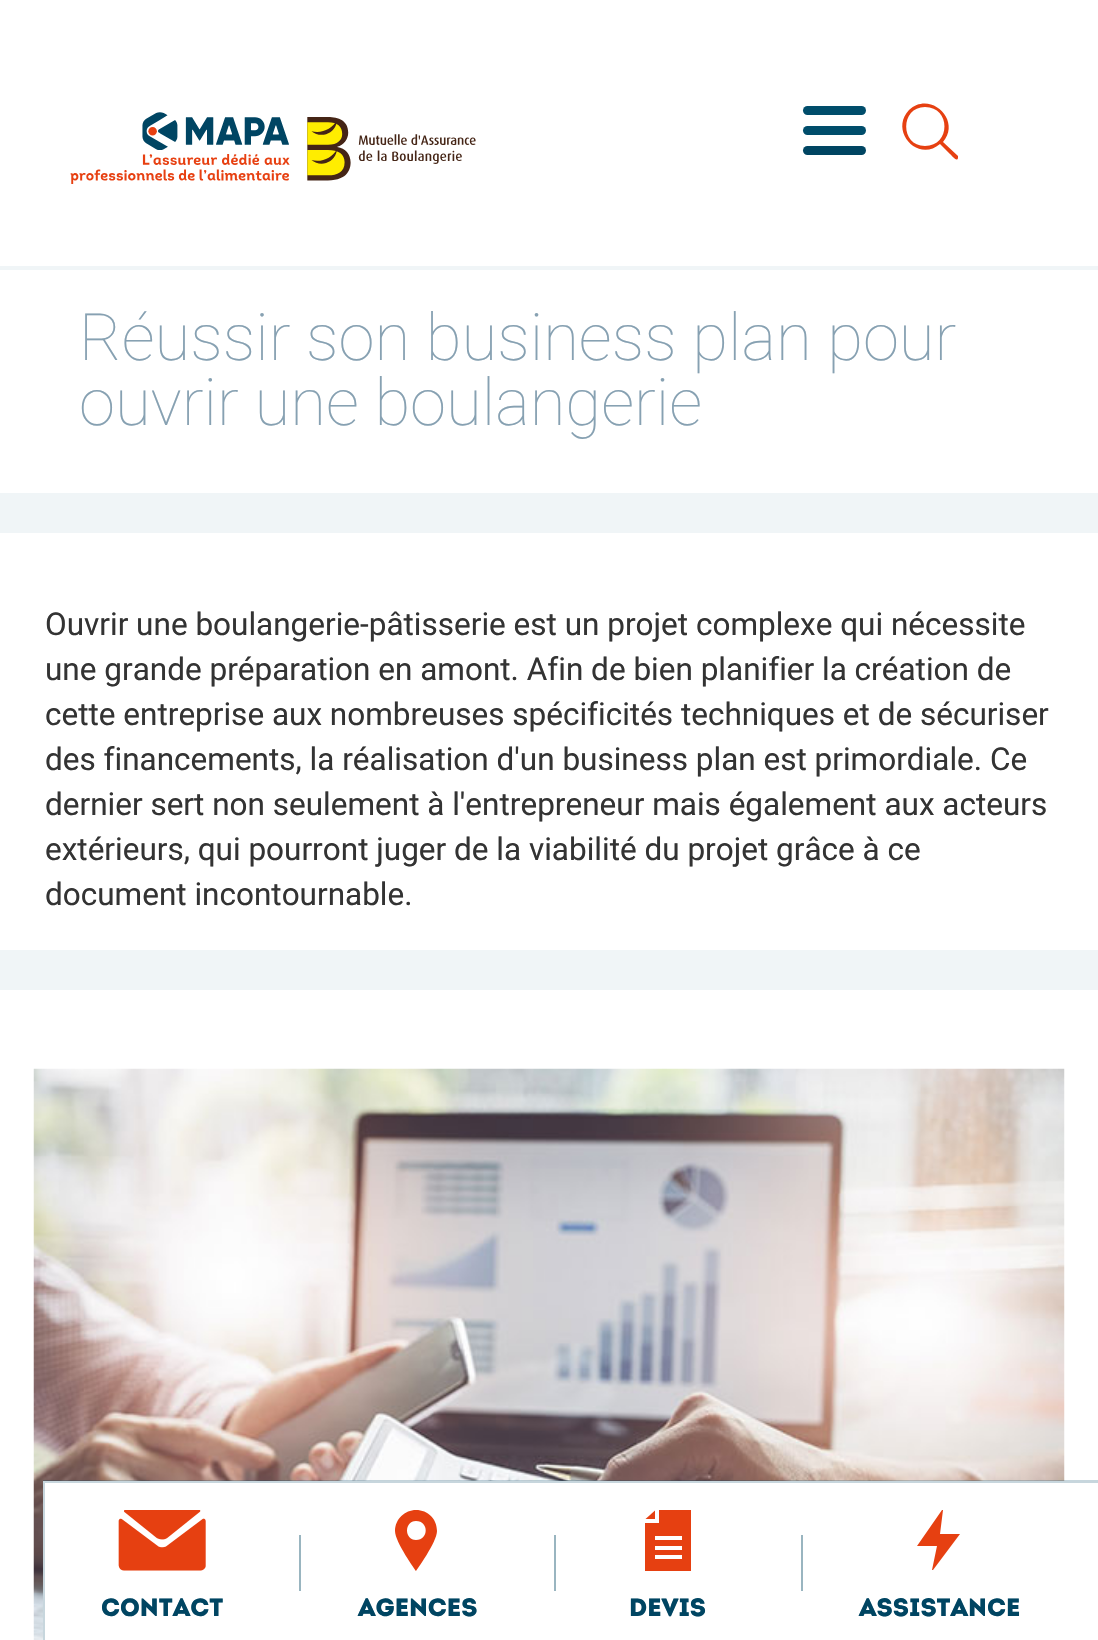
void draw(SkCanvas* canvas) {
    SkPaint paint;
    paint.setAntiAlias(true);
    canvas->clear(0xFFF0F5F7);
    paint.setColor(0xFFFFFFFF);
    canvas->drawRect(SkRect::MakeXYWH(0, 0, 1098, 266), paint);
    canvas->drawImageRect(SkImages::DeferredFromEncodedData(SkData::MakeFromFileName("img1.png")), SkRect::MakeXYWH(70, 112, 406, 72), SkSamplingOptions());
    paint.setColor(0xFF004D6B);
    canvas->drawRoundRect(SkRect::MakeXYWH(803, 106, 63, 9), 4.5f, 4.5f, paint);
    canvas->drawRoundRect(SkRect::MakeXYWH(803, 126, 63, 9), 4.5f, 4.5f, paint);
    paint.setColor(0xFF004562);
    canvas->drawRoundRect(SkRect::MakeXYWH(803, 146, 63, 9), 4.5f, 4.5f, paint);
    paint.setColor(0xFFE64011);
    canvas->drawPath(SkPathBuilder().moveTo(925, 146).cubicTo(900, 146, 900, 107, 925, 107).cubicTo(951, 107, 951, 146, 925, 146).close().moveTo(958, 156).lineTo(943, 142).cubicTo(962, 120, 930, 90, 909, 110).cubicTo(889, 131, 918, 163, 940, 144).lineTo(950, 154).cubicTo(953, 157, 957, 162, 958, 158).close().detach(), paint);
    paint.setColor(0xFFFFFFFF);
    canvas->drawRect(SkRect::MakeXYWH(0, 270, 1098, 223), paint);
    SkFont font1(fontMgr->matchFamilyStyle("Roboto", SkFontStyle(100, SkFontStyle::kNormal_Width, SkFontStyle::kUpright_Slant)), 65.25f);
    font1.setSubpixel(true);
    paint.setColor(0xFF87A1B2);
    canvas->drawString("Réussir son business plan pour", 79, 360, font1, paint);
    canvas->drawString("ouvrir une boulangerie", 79, 425, font1, paint);
    paint.setColor(0xFFFFFFFF);
    canvas->drawRect(SkRect::MakeXYWH(0, 533, 1098, 417), paint);
    SkFont font2(fontMgr->matchFamilyStyle("Roboto", SkFontStyle::Normal()), 31.5f);
    font2.setSubpixel(true);
    paint.setColor(0xFF333333);
    canvas->drawString("Ouvrir une boulangerie-pâtisserie est un projet complexe qui nécessite", 45, 635, font2, paint);
    canvas->drawString("une grande préparation en amont. Afin de bien planifier la création de", 45, 680, font2, paint);
    canvas->drawString("cette entreprise aux nombreuses spécificités techniques et de sécuriser", 45, 725, font2, paint);
    canvas->drawString("des financements, la réalisation d'un business plan est primordiale. Ce", 45, 770, font2, paint);
    canvas->drawString("dernier sert non seulement à l'entrepreneur mais également aux acteurs", 45, 815, font2, paint);
    canvas->drawString("extérieurs, qui pourront juger de la viabilité du projet grâce à ce", 45, 860, font2, paint);
    canvas->drawString("document incontournable.", 45, 905, font2, paint);
    paint.setColor(0xFFFFFFFF);
    canvas->drawRect(SkRect::MakeXYWH(0, 990, 1098, 650), paint);
    canvas->drawImageRect(SkImages::DeferredFromEncodedData(SkData::MakeFromFileName("img2.png")), SkRect::MakeXYWH(33, 1068, 1032, 572), SkSamplingOptions());
    canvas->drawRect(SkRect::MakeXYWH(43, 1481, 1022, 159), paint);
    paint.setColor(0x38004562);
    canvas->drawPath(SkPathBuilder().moveTo(43, 1480).lineTo(1098, 1480).lineTo(1098, 1483).lineTo(45, 1483).close().detach(), paint);
    canvas->drawPath(SkPathBuilder().moveTo(43, 1640).lineTo(43, 1480).lineTo(45, 1483).lineTo(45, 1640).close().detach(), paint);
    canvas->drawImageRect(SkImages::DeferredFromEncodedData(SkData::MakeFromFileName("img3.png")), SkRect::MakeXYWH(118, 1510, 88, 61), SkSamplingOptions());
    paint.setColor(0xFF99B5C0);
    canvas->drawRect(SkRect::MakeXYWH(299, 1535, 2, 56), paint);
    SkFont font3(fontMgr->matchFamilyStyle("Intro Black", SkFontStyle(900, SkFontStyle::kNormal_Width, SkFontStyle::kUpright_Slant)), 25);
    font3.setSubpixel(true);
    paint.setColor(0xFF004562);
    canvas->drawString("CONTACT", 101, 1616, font3, paint);
    paint.setColor(0xFFE64011);
    canvas->drawPath(SkPathBuilder().moveTo(416, 1540).cubicTo(404, 1540, 404, 1521, 416, 1521).cubicTo(429, 1521, 429, 1540, 416, 1540).close().moveTo(416, 1510).cubicTo(405, 1510, 395, 1519, 395, 1531).cubicTo(395, 1542, 416, 1571, 416, 1571).cubicTo(416, 1571, 437, 1542, 437, 1531).cubicTo(437, 1519, 428, 1510, 416, 1510).close().detach(), paint);
    paint.setColor(0xFF99B5C0);
    canvas->drawRect(SkRect::MakeXYWH(554, 1535, 2, 56), paint);
    paint.setColor(0xFF004562);
    canvas->drawString("AGENCES", 358, 1616, font3, paint);
    paint.setColor(0xFFE64011);
    canvas->drawPath(SkPathBuilder().moveTo(655, 1510.5f).lineTo(645.5f, 1519).lineTo(655, 1519).close().detach(), paint);
    canvas->drawPath(SkPathBuilder().moveTo(682, 1540).lineTo(655, 1540).lineTo(655, 1536).lineTo(682, 1536).close().moveTo(682, 1550).lineTo(655, 1550).lineTo(655, 1546).lineTo(682, 1546).close().moveTo(682, 1559).lineTo(655, 1559).lineTo(655, 1555).lineTo(682, 1555).close().moveTo(659, 1510).lineTo(659, 1523).lineTo(645, 1523).lineTo(645, 1571).lineTo(691, 1571).lineTo(691, 1510).close().detach(), paint);
    paint.setColor(0xFF99B5C0);
    canvas->drawRect(SkRect::MakeXYWH(801, 1535, 2, 56), paint);
    paint.setColor(0xFF004562);
    canvas->drawString("DEVIS", 629, 1616, font3, paint);
    paint.setColor(0xFFE64011);
    canvas->drawPath(SkPathBuilder(SkPathFillType::kEvenOdd).moveTo(942, 1510).lineTo(917, 1546).lineTo(937, 1546).lineTo(932, 1570).lineTo(933, 1570).lineTo(960, 1534).lineTo(940, 1534).lineTo(943, 1510).close().detach(), paint);
    paint.setColor(0xFF004562);
    canvas->drawString("ASSISTANCE", 859, 1616, font3, paint);
}
